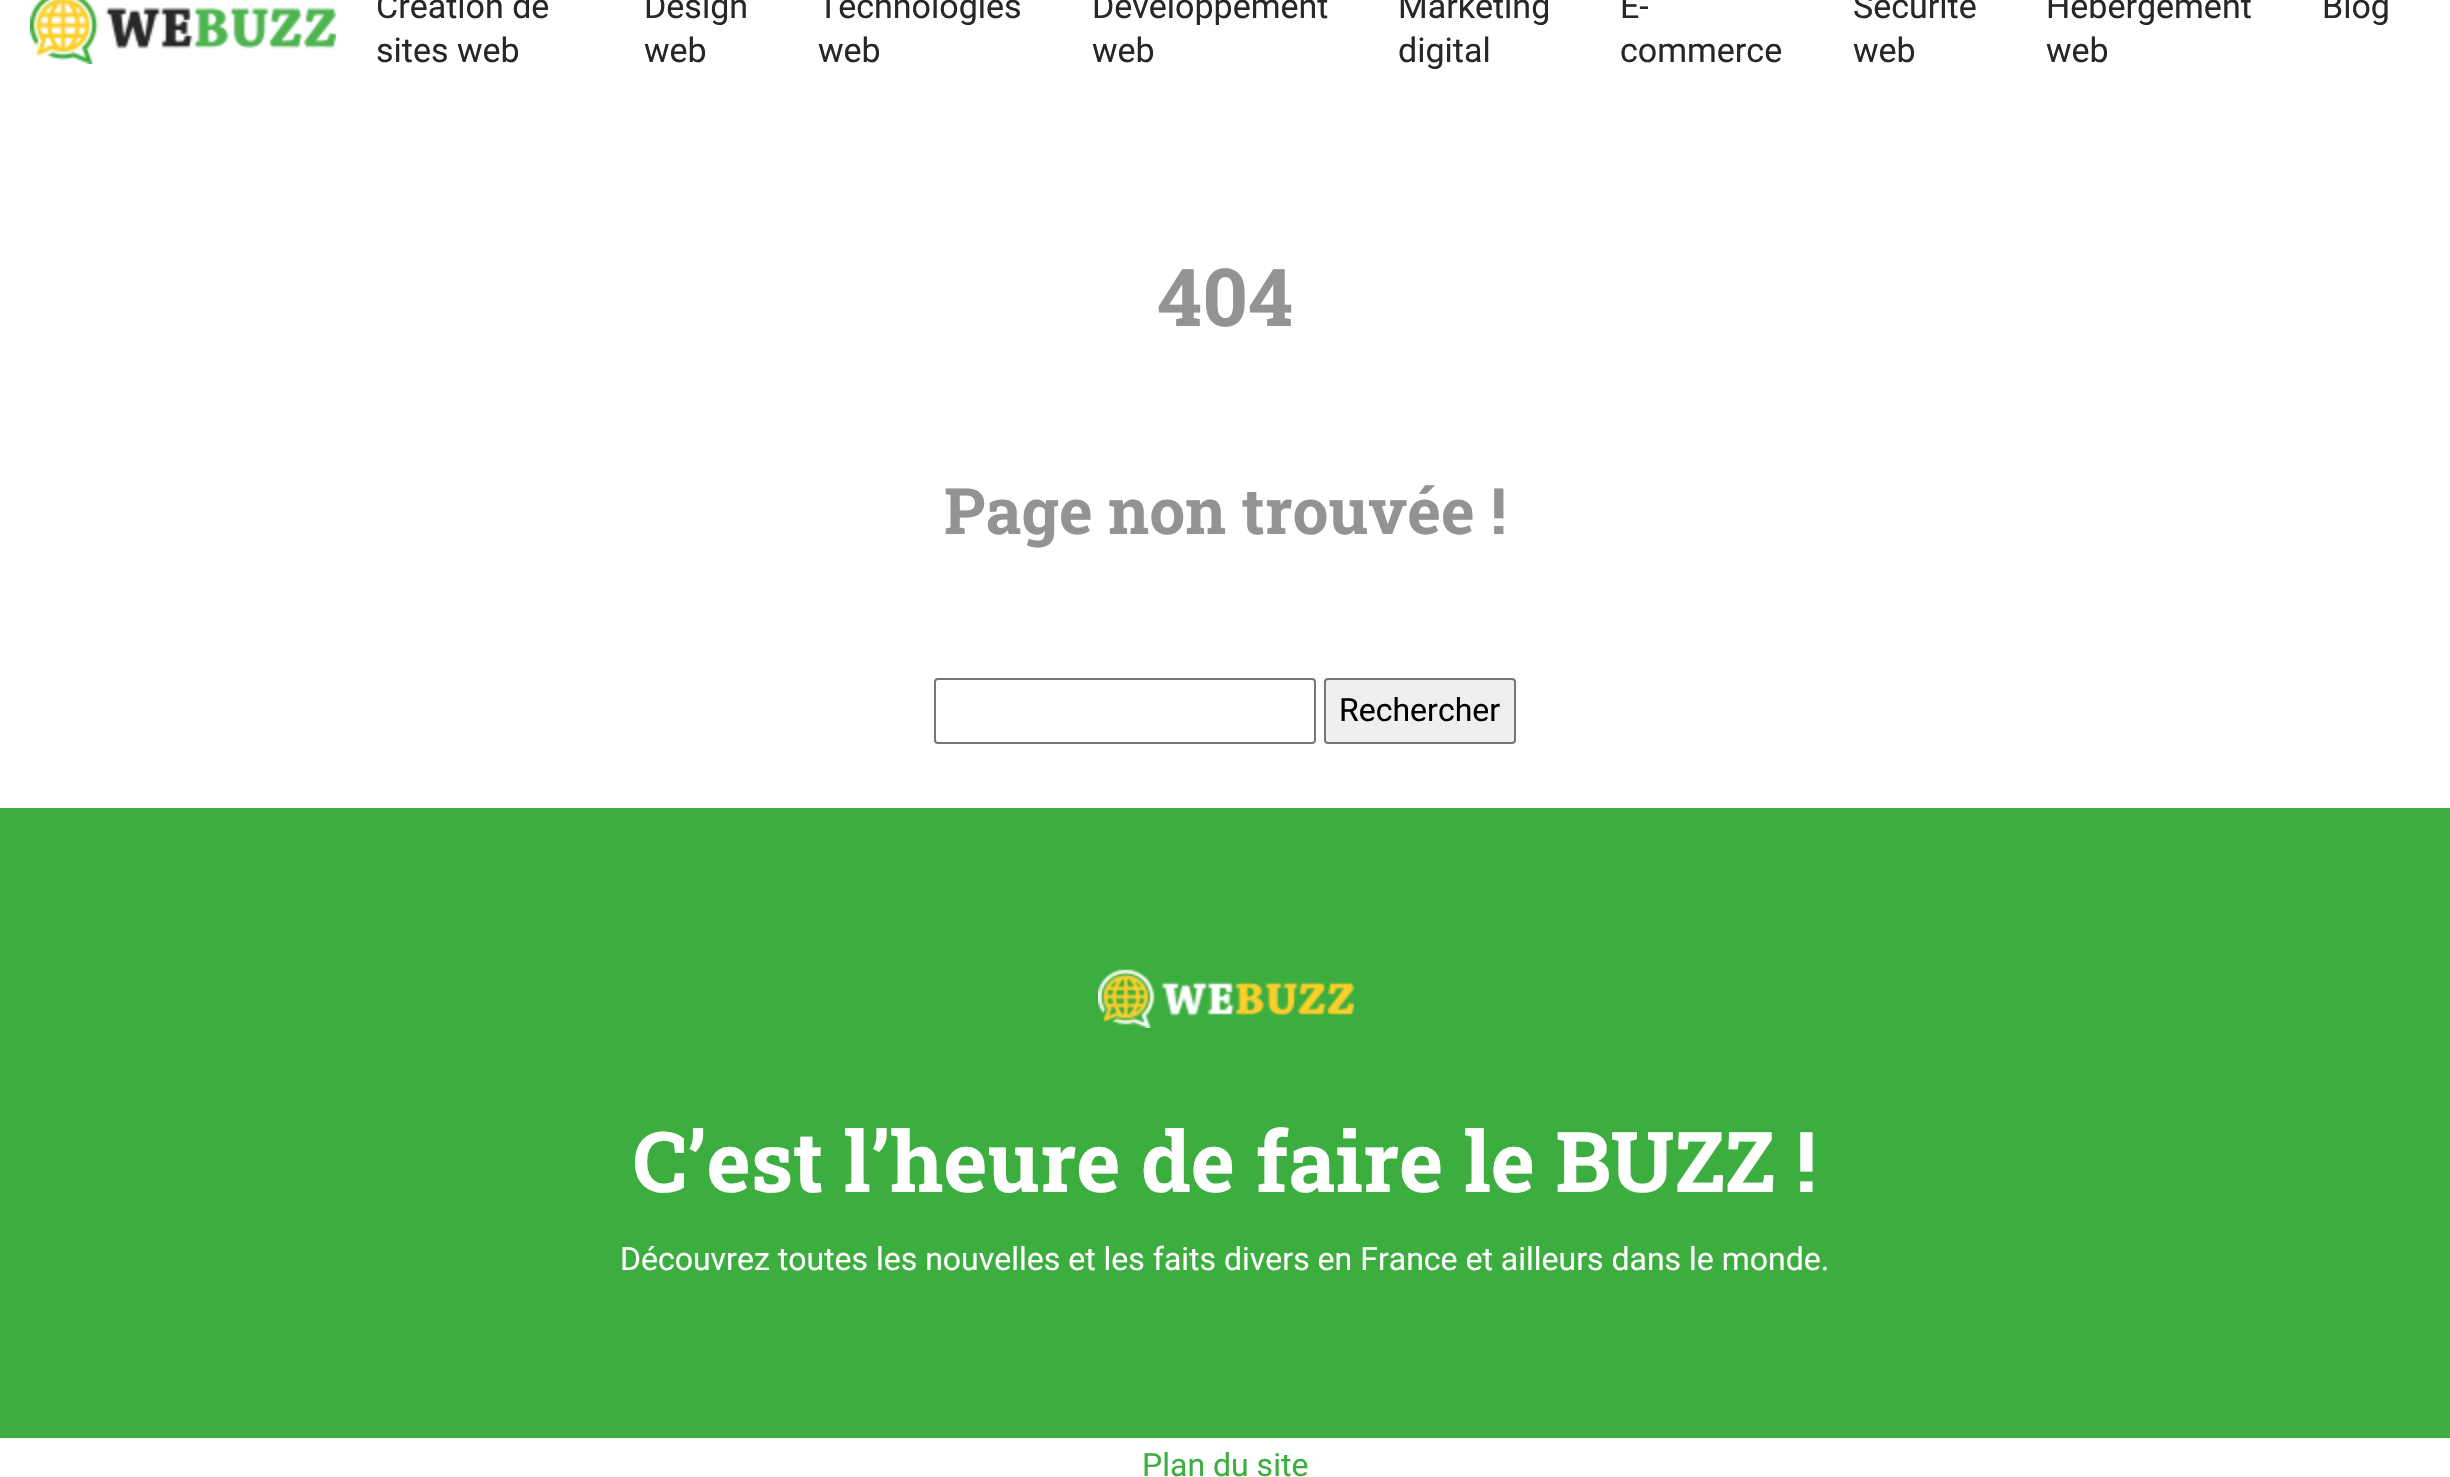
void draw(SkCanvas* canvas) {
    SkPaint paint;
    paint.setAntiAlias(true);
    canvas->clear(0xFFFFFFFF);
    canvas->drawImageRect(SkImages::DeferredFromEncodedData(SkData::MakeFromFileName("img1.png")), SkRect::MakeXYWH(30, 0, 306, 64), SkSamplingOptions());
    SkFont font1(fontMgr->matchFamilyStyle("Roboto", SkFontStyle::Normal()), 34);
    font1.setSubpixel(true);
    paint.setColor(0xFF272727);
    canvas->drawString("Création de", 376, 18, font1, paint);
    canvas->drawString("sites web", 376, 62, font1, paint);
    canvas->drawString("Design", 644, 18, font1, paint);
    canvas->drawString("web", 644, 62, font1, paint);
    canvas->drawString("Technologies", 818, 18, font1, paint);
    canvas->drawString("web", 818, 62, font1, paint);
    canvas->drawString("Développement", 1092, 18, font1, paint);
    canvas->drawString("web", 1092, 62, font1, paint);
    canvas->drawString("Marketing", 1398, 18, font1, paint);
    canvas->drawString("digital", 1398, 62, font1, paint);
    canvas->drawString("E-", 1620, 18, font1, paint);
    canvas->drawString("commerce", 1620, 62, font1, paint);
    canvas->drawString("Sécurité", 1853, 18, font1, paint);
    canvas->drawString("web", 1853, 62, font1, paint);
    canvas->drawString("Hébergement", 2046, 18, font1, paint);
    canvas->drawString("web", 2046, 62, font1, paint);
    canvas->drawString("Blog", 2322, 18, font1, paint);
    SkFont font2(fontMgr->matchFamilyStyle("Roboto Slab", SkFontStyle::Bold()), 80);
    font2.setSubpixel(true);
    paint.setColor(0xFF939393);
    canvas->drawString("404", 1157, 326, font2, paint);
    SkFont font3(fontMgr->matchFamilyStyle("Roboto Slab", SkFontStyle::Bold()), 64);
    font3.setSubpixel(true);
    canvas->drawString("Page non trouvée !", 944, 534, font3, paint);
    paint.setStyle(SkPaint::kStroke_Style);
    paint.setStrokeWidth(2);
    paint.setColor(0xFF767676);
    canvas->drawRoundRect(SkRect::MakeXYWH(935, 679, 380, 64), 3, 3, paint);
    paint.setStyle(SkPaint::kFill_Style);
    paint.setColor(0xFFEFEFEF);
    canvas->drawRoundRect(SkRect::MakeXYWH(1325, 679, 190, 64), 3, 3, paint);
    paint.setStyle(SkPaint::kStroke_Style);
    paint.setColor(0xFF767676);
    canvas->drawRoundRect(SkRect::MakeXYWH(1325, 679, 190, 64), 3, 3, paint);
    SkFont font4(fontMgr->matchFamilyStyle("Roboto", SkFontStyle::Normal()), 32);
    font4.setSubpixel(true);
    paint.setStyle(SkPaint::kFill_Style);
    paint.setColor(0xFF000000);
    canvas->drawString("Rechercher", 1339, 721, font4, paint);
    paint.setColor(0xFF3CAE3F);
    canvas->drawRect(SkRect::MakeXYWH(0, 808, 2450, 630), paint);
    canvas->drawImageRect(SkImages::DeferredFromEncodedData(SkData::MakeFromFileName("img2.png")), SkRect::MakeXYWH(1098, 969, 256, 59), SkSamplingOptions());
    SkFont font5(fontMgr->matchFamilyStyle("Roboto Slab", SkFontStyle::Bold()), 84);
    font5.setSubpixel(true);
    paint.setColor(0xFFFFFFFF);
    canvas->drawString("C’est l’heure de faire le BUZZ !", 633, 1192, font5, paint);
    canvas->drawString("Découvrez toutes les nouvelles et les faits divers en France et ailleurs dans le monde.", 620, 1270, font4, paint);
    paint.setColor(0xFF3CAE3F);
    canvas->drawString("Plan du site", 1142, 1476, font4, paint);
}
